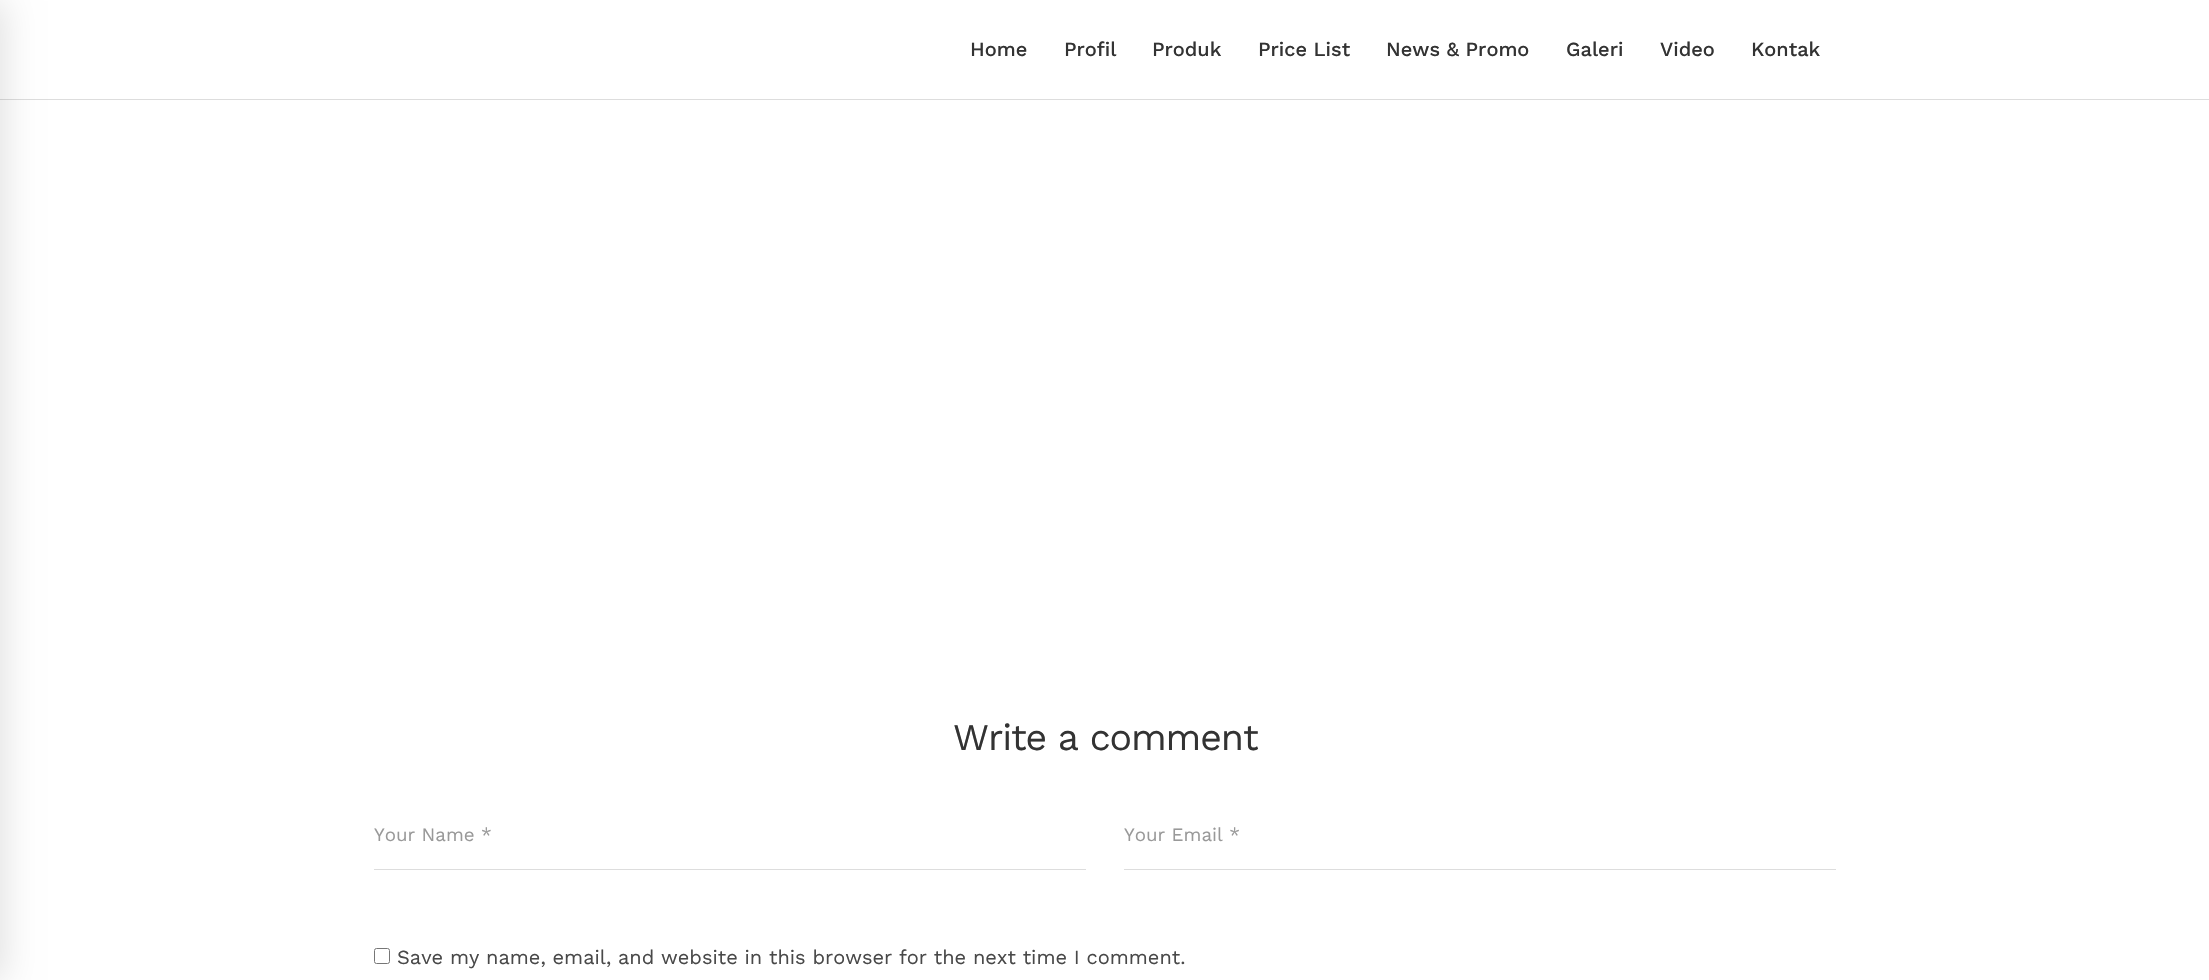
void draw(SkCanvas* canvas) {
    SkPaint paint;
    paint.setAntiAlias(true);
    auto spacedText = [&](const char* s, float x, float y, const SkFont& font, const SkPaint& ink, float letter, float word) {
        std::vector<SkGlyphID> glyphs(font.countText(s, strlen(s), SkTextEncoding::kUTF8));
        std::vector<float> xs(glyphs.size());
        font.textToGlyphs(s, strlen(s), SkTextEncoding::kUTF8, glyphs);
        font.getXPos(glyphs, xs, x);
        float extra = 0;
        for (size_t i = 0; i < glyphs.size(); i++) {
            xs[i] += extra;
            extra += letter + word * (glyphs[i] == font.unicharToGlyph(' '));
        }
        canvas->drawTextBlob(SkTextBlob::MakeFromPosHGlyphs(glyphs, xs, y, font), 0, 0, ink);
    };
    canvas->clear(0xFFFFFFFF);
    paint.setColor(0xFFDDDDDD);
    canvas->drawRect(SkRect::MakeXYWH(0, 99, 2209, 1), paint);
    paint.setColor(0x1F000000);
    paint.setMaskFilter(SkMaskFilter::MakeBlur(kNormal_SkBlurStyle, 18));
    canvas->drawRect(SkRect::MakeXYWH(-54, 1, 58, 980), paint);
    paint.setMaskFilter(nullptr);
    SkFont font1(fontMgr->matchFamilyStyle("Work Sans", SkFontStyle(500, SkFontStyle::kNormal_Width, SkFontStyle::kUpright_Slant)), 20);
    font1.setSubpixel(true);
    paint.setColor(0xFF333333);
    canvas->drawString("Home", 970, 56, font1, paint);
    canvas->drawString("Profil", 1064, 56, font1, paint);
    canvas->drawString("Produk", 1152, 56, font1, paint);
    canvas->drawString("Price List", 1258, 56, font1, paint);
    canvas->drawString("News & Promo", 1386, 56, font1, paint);
    canvas->drawString("Galeri", 1566, 56, font1, paint);
    canvas->drawString("Video", 1660, 56, font1, paint);
    canvas->drawString("Kontak", 1751, 56, font1, paint);
    SkFont font2(fontMgr->matchFamilyStyle("Work Sans", SkFontStyle::Normal()), 37.5f);
    font2.setSubpixel(true);
    spacedText("Write a comment", 953, 750, font2, paint, -1.1f, 0);
    paint.setColor(0xFFDDDDDD);
    canvas->drawRect(SkRect::MakeXYWH(374, 869, 712, 1), paint);
    SkFont font3(fontMgr->matchFamilyStyle("Work Sans", SkFontStyle::Normal()), 18.75f);
    font3.setSubpixel(true);
    paint.setColor(0xFF999999);
    canvas->drawString("Your Name *", 374, 841, font3, paint);
    paint.setColor(0xFFDDDDDD);
    canvas->drawRect(SkRect::MakeXYWH(1124, 869, 712, 1), paint);
    paint.setColor(0xFF999999);
    canvas->drawString("Your Email *", 1124, 841, font3, paint);
    paint.setStyle(SkPaint::kStroke_Style);
    paint.setStrokeWidth(1);
    paint.setColor(0xFF767676);
    canvas->drawRoundRect(SkRect::MakeXYWH(374.5f, 948.5f, 15, 15), 2, 2, paint);
    SkFont font4(fontMgr->matchFamilyStyle("Work Sans", SkFontStyle::Normal()), 20);
    font4.setSubpixel(true);
    paint.setStyle(SkPaint::kFill_Style);
    paint.setColor(0xFF494949);
    canvas->drawString("Save my name, email, and website in this browser for the next time I comment.", 397, 964, font4, paint);
}
